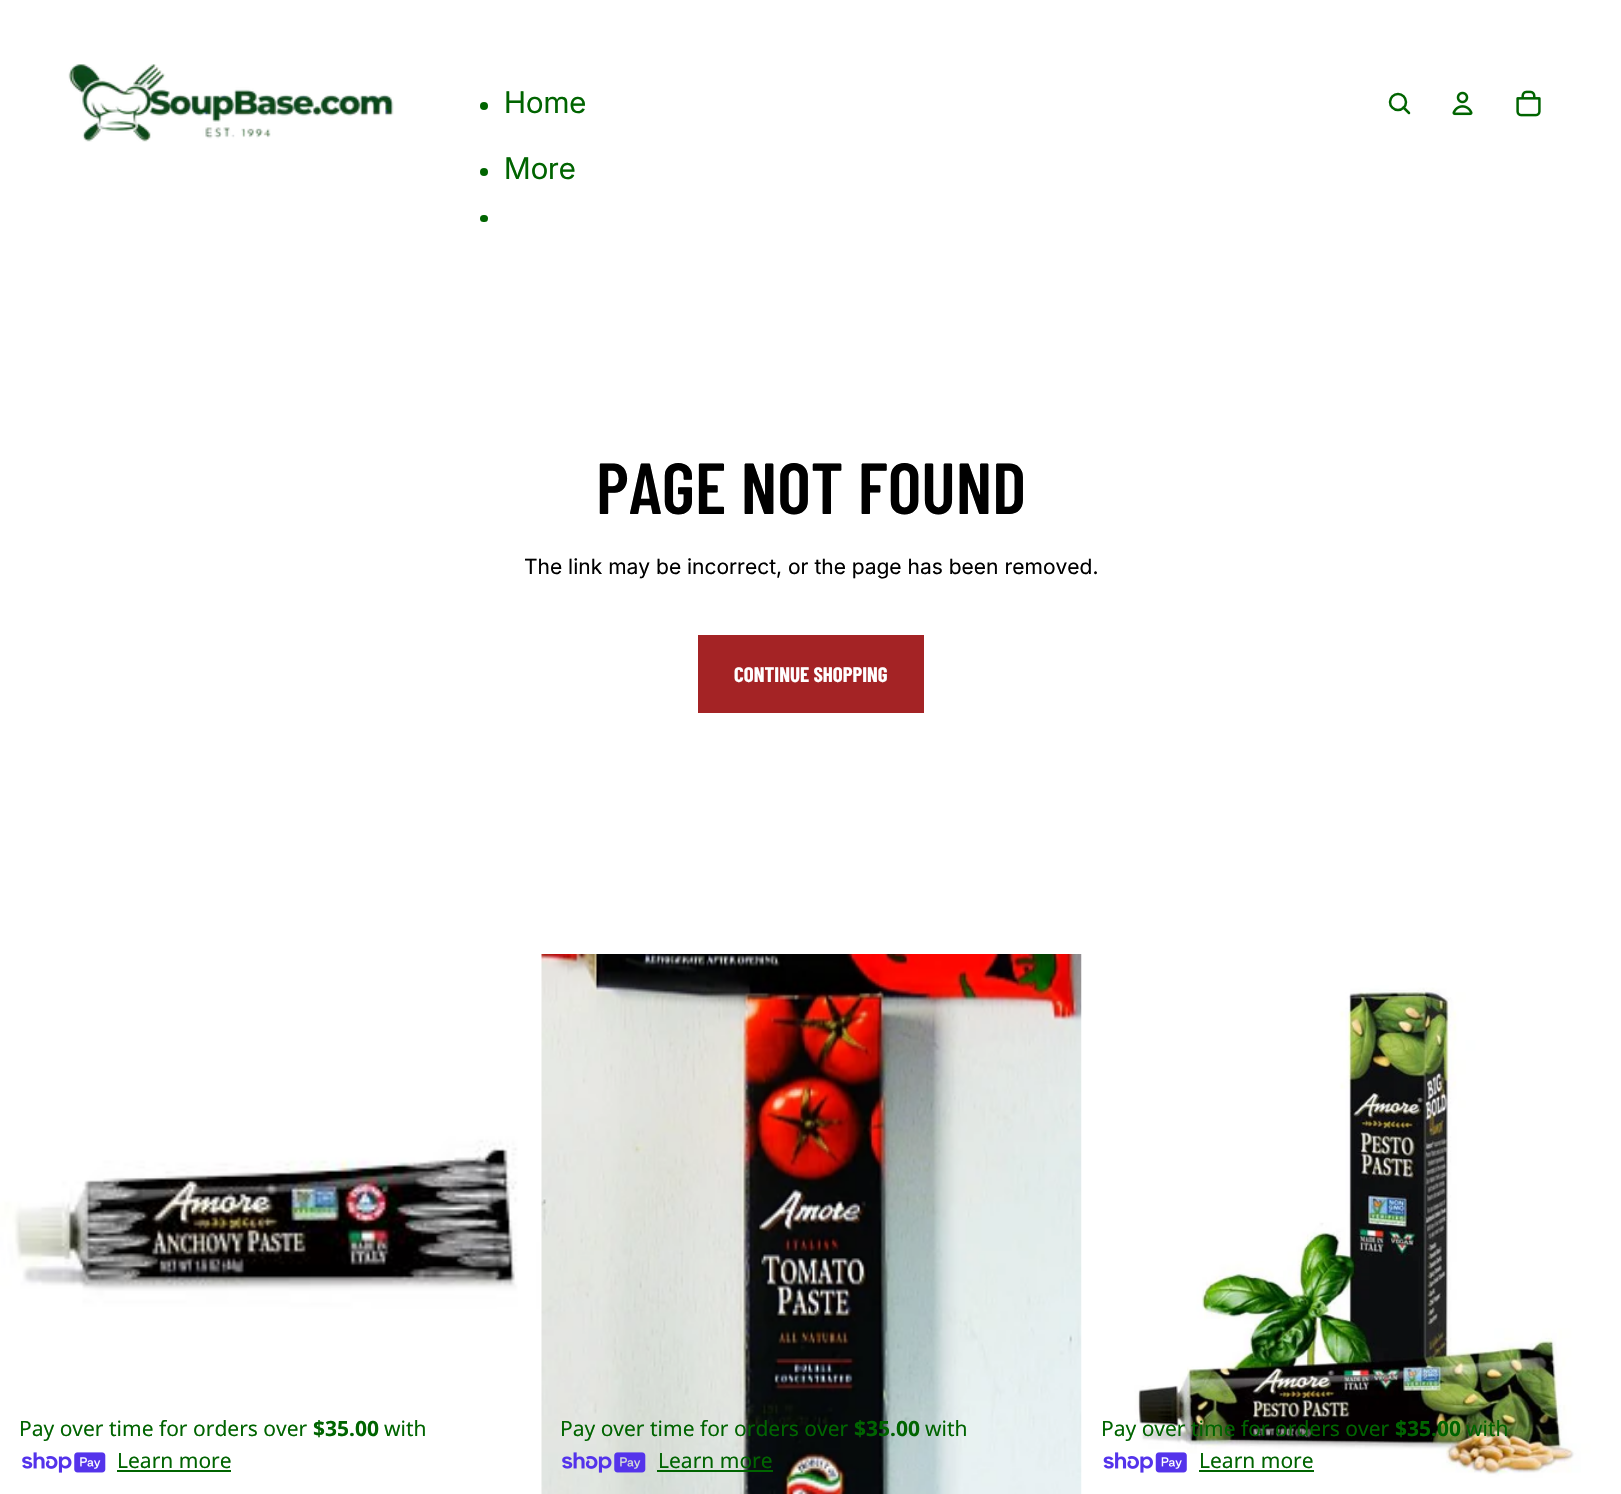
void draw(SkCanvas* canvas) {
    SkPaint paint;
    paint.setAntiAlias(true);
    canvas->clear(0xFFFFFFFF);
    canvas->drawImageRect(SkImages::DeferredFromEncodedData(SkData::MakeFromFileName("img1.png")), SkRect::MakeXYWH(68, 64, 326, 78), SkSamplingOptions());
    paint.setColor(0xFF006400);
    canvas->drawCircle(484, 106, 4, paint);
    SkFont font1(fontMgr->matchFamilyStyle("Inter", SkFontStyle::Normal()), 30);
    font1.setSubpixel(true);
    canvas->drawString("Home", 504, 113, font1, paint);
    canvas->drawCircle(484, 172, 4, paint);
    canvas->drawString("More", 504, 179, font1, paint);
    canvas->drawRoundRect(SkRect::MakeXYWH(480, 215, 8, 7), 3.5f, 3.5f, paint);
    paint.setStyle(SkPaint::kStroke_Style);
    paint.setStrokeWidth(2.5f);
    canvas->drawCircle(1398, 102, 8, paint);
    paint.setStrokeCap(SkPaint::kRound_Cap);
    paint.setStrokeJoin(SkPaint::kRound_Join);
    canvas->drawPath(SkPathBuilder().moveTo(1403.5f, 107.5f).lineTo(1409, 113).detach(), paint);
    canvas->drawImageRect(SkImages::DeferredFromEncodedData(SkData::MakeFromFileName("img2.png")), SkRect::MakeXYWH(1452, 91, 21, 25), SkSamplingOptions());
    canvas->drawImageRect(SkImages::DeferredFromEncodedData(SkData::MakeFromFileName("img3.png")), SkRect::MakeXYWH(1516, 90, 25, 27), SkSamplingOptions());
    SkFont font2(fontMgr->matchFamilyStyle("Barlow Condensed", SkFontStyle(600, SkFontStyle::kNormal_Width, SkFontStyle::kUpright_Slant)), 72);
    font2.setSubpixel(true);
    paint.setStyle(SkPaint::kFill_Style);
    paint.setColor(0xFF000000);
    canvas->drawString("PAGE NOT FOUND", 596, 514, font2, paint);
    SkFont font3(fontMgr->matchFamilyStyle("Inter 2", SkFontStyle::Normal()), 21);
    font3.setSubpixel(true);
    canvas->drawString("The link may be incorrect, or the page has been removed.", 524, 574, font3, paint);
    paint.setColor(0xFFA42325);
    canvas->drawRect(SkRect::MakeXYWH(698, 635, 226, 78), paint);
    SkFont font4(fontMgr->matchFamilyStyle("Barlow Condensed", SkFontStyle::Bold()), 21);
    font4.setSubpixel(true);
    paint.setColor(0xFFFFFFFF);
    canvas->drawString("CONTINUE SHOPPING", 734, 682, font4, paint);
    canvas->drawImageRect(SkImages::DeferredFromEncodedData(SkData::MakeFromFileName("img4.png")), SkRect::MakeXYWH(0, 954, 540, 540), SkSamplingOptions());
    SkFont font5(fontMgr->matchFamilyStyle("Noto Sans", SkFontStyle::Normal()), 21);
    font5.setSubpixel(true);
    paint.setColor(0xFF006400);
    canvas->drawString("Pay over time for orders over", 19, 1436, font5, paint);
    SkFont font6(fontMgr->matchFamilyStyle("Noto Sans", SkFontStyle::Bold()), 21);
    font6.setSubpixel(true);
    canvas->drawString("$35.00", 313, 1436, font6, paint);
    canvas->drawString("with", 384, 1436, font5, paint);
    canvas->drawImageRect(SkImages::DeferredFromEncodedData(SkData::MakeFromFileName("img5.png")), SkRect::MakeXYWH(22, 1452, 84, 21), SkSamplingOptions());
    canvas->drawString("Learn more", 117, 1468, font5, paint);
    canvas->drawRect(SkRect::MakeXYWH(117, 1470, 114, 2), paint);
    canvas->drawImageRect(SkImages::DeferredFromEncodedData(SkData::MakeFromFileName("img6.png")), SkRect::MakeXYWH(541, 954, 541, 540), SkSamplingOptions());
    canvas->drawString("Pay over time for orders over", 560, 1436, font5, paint);
    canvas->drawString("$35.00", 854, 1436, font6, paint);
    canvas->drawString("with", 925, 1436, font5, paint);
    canvas->drawImageRect(SkImages::DeferredFromEncodedData(SkData::MakeFromFileName("img7.png")), SkRect::MakeXYWH(562, 1452, 84, 21), SkSamplingOptions());
    canvas->drawString("Learn more", 658, 1468, font5, paint);
    canvas->drawRect(SkRect::MakeXYWH(657, 1470, 116, 2), paint);
    canvas->drawImageRect(SkImages::DeferredFromEncodedData(SkData::MakeFromFileName("img8.png")), SkRect::MakeXYWH(1081, 954, 540, 540), SkSamplingOptions());
    canvas->drawString("Pay over time for orders over", 1101, 1436, font5, paint);
    canvas->drawString("$35.00", 1395, 1436, font6, paint);
    canvas->drawString("with", 1466, 1436, font5, paint);
    canvas->drawImageRect(SkImages::DeferredFromEncodedData(SkData::MakeFromFileName("img9.png")), SkRect::MakeXYWH(1103, 1452, 84, 21), SkSamplingOptions());
    canvas->drawString("Learn more", 1199, 1468, font5, paint);
    canvas->drawRect(SkRect::MakeXYWH(1199, 1470, 115, 2), paint);
}
